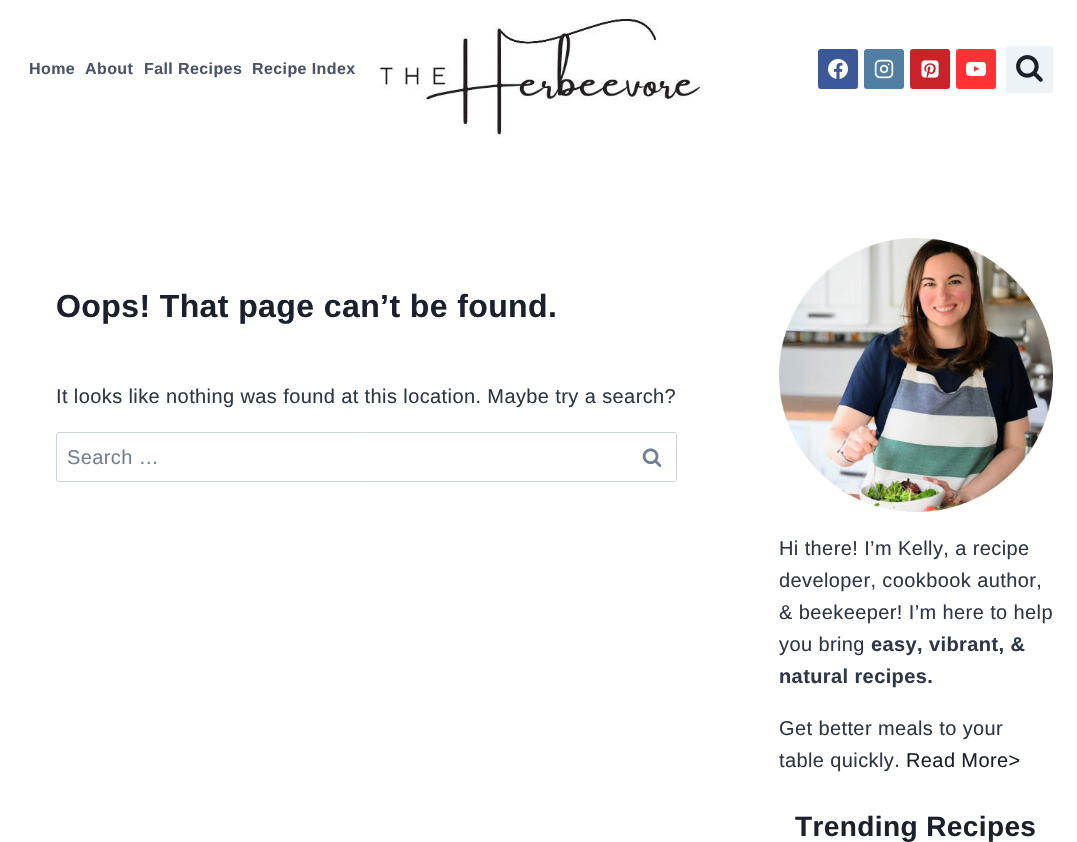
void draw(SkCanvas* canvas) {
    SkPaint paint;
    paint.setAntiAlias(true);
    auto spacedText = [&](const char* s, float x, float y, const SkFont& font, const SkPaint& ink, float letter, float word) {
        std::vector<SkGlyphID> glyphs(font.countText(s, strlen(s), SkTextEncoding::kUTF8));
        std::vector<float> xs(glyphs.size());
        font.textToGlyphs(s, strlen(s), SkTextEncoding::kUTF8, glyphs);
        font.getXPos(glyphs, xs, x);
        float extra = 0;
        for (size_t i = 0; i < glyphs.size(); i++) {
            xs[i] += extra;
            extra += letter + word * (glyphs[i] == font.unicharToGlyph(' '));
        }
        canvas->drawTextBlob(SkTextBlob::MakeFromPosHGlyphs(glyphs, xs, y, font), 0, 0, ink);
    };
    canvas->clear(0xFFFFFFFF);
    SkFont font1(fontMgr->matchFamilyStyle("Liberation Sans", SkFontStyle::Bold()), 16);
    font1.setSubpixel(true);
    paint.setColor(0xFF4A5568);
    spacedText("Home", 29, 74, font1, paint, 0.4f, 0);
    spacedText("About", 85, 74, font1, paint, 0.4f, 0);
    spacedText("Fall Recipes", 144, 74, font1, paint, 0.4f, 0);
    spacedText("Recipe Index", 252, 74, font1, paint, 0.4f, 0);
    canvas->drawImageRect(SkImages::DeferredFromEncodedData(SkData::MakeFromFileName("img1.png")), SkRect::MakeXYWH(379, 17, 323, 121), SkSamplingOptions());
    paint.setColor(0xFF3B5998);
    canvas->drawRoundRect(SkRect::MakeXYWH(818, 49, 40, 40), 3, 3, paint);
    canvas->drawImageRect(SkImages::DeferredFromEncodedData(SkData::MakeFromFileName("img2.png")), SkRect::MakeXYWH(828, 59, 20, 20), SkSamplingOptions());
    paint.setColor(0xFF517FA4);
    canvas->drawRoundRect(SkRect::MakeXYWH(864, 49, 40, 40), 3, 3, paint);
    canvas->drawImageRect(SkImages::DeferredFromEncodedData(SkData::MakeFromFileName("img3.png")), SkRect::MakeXYWH(874, 59, 20, 20), SkSamplingOptions());
    paint.setColor(0xFFC92228);
    canvas->drawRoundRect(SkRect::MakeXYWH(910, 49, 40, 40), 3, 3, paint);
    canvas->drawImageRect(SkImages::DeferredFromEncodedData(SkData::MakeFromFileName("img4.png")), SkRect::MakeXYWH(921, 60, 18, 18), SkSamplingOptions());
    paint.setColor(0xFFFF3333);
    canvas->drawRoundRect(SkRect::MakeXYWH(956, 49, 40, 40), 3, 3, paint);
    canvas->drawImageRect(SkImages::DeferredFromEncodedData(SkData::MakeFromFileName("img5.png")), SkRect::MakeXYWH(966, 62, 20, 14), SkSamplingOptions());
    paint.setColor(0xFFEDF2F7);
    canvas->drawRoundRect(SkRect::MakeXYWH(1006, 46, 47, 47), 3, 3, paint);
    canvas->drawImageRect(SkImages::DeferredFromEncodedData(SkData::MakeFromFileName("img6.png")), SkRect::MakeXYWH(1016, 55, 27, 27), SkSamplingOptions());
    SkFont font2(fontMgr->matchFamilyStyle("Liberation Sans", SkFontStyle::Bold()), 32);
    font2.setSubpixel(true);
    paint.setColor(0xFF1A202C);
    spacedText("Oops! That page can’t be found.", 56, 317, font2, paint, 0.4f, 0);
    SkFont font3(fontMgr->matchFamilyStyle("Liberation Sans", SkFontStyle::Normal()), 20);
    font3.setSubpixel(true);
    paint.setColor(0xFF2D3748);
    spacedText("It looks like nothing was found at this location. Maybe try a search?", 56, 403, font3, paint, 0.4f, 0);
    paint.setStyle(SkPaint::kStroke_Style);
    paint.setStrokeWidth(1);
    paint.setColor(0xFFCBD5E0);
    canvas->drawRoundRect(SkRect::MakeXYWH(56.5f, 432.5f, 620, 49), 2.5f, 2.5f, paint);
    paint.setStyle(SkPaint::kFill_Style);
    paint.setColor(0xFF718096);
    spacedText("Search …", 67, 464, font3, paint, 0.4f, 0);
    canvas->drawImageRect(SkImages::DeferredFromEncodedData(SkData::MakeFromFileName("img7.png")), SkRect::MakeXYWH(642, 448, 20, 19), SkSamplingOptions());
    canvas->drawImageRect(SkImages::DeferredFromEncodedData(SkData::MakeFromFileName("img8.png")), SkRect::MakeXYWH(779, 238, 274, 274), SkSamplingOptions());
    paint.setColor(0xFF2D3748);
    spacedText("Hi there! I’m Kelly, a recipe", 779, 555, font3, paint, 0.4f, 0);
    spacedText("developer, cookbook author,", 779, 587, font3, paint, 0.4f, 0);
    spacedText("& beekeeper! I’m here to help", 779, 619, font3, paint, 0.4f, 0);
    spacedText("you bring", 779, 651, font3, paint, 0.4f, 0);
    SkFont font4(fontMgr->matchFamilyStyle("Liberation Sans", SkFontStyle::Bold()), 20);
    font4.setSubpixel(true);
    spacedText("easy, vibrant, &", 871, 651, font4, paint, 0.4f, 0);
    spacedText("natural recipes.", 779, 683, font4, paint, 0.4f, 0);
    spacedText("Get better meals to your", 779, 735, font3, paint, 0.4f, 0);
    spacedText("table quickly.", 779, 767, font3, paint, 0.4f, 0);
    paint.setColor(0xFF1A202C);
    spacedText("Read More>", 906, 767, font3, paint, 0.4f, 0);
    SkFont font5(fontMgr->matchFamilyStyle("Liberation Sans", SkFontStyle::Bold()), 28);
    font5.setSubpixel(true);
    spacedText("Trending Recipes", 795, 836, font5, paint, 0.4f, 0);
}
